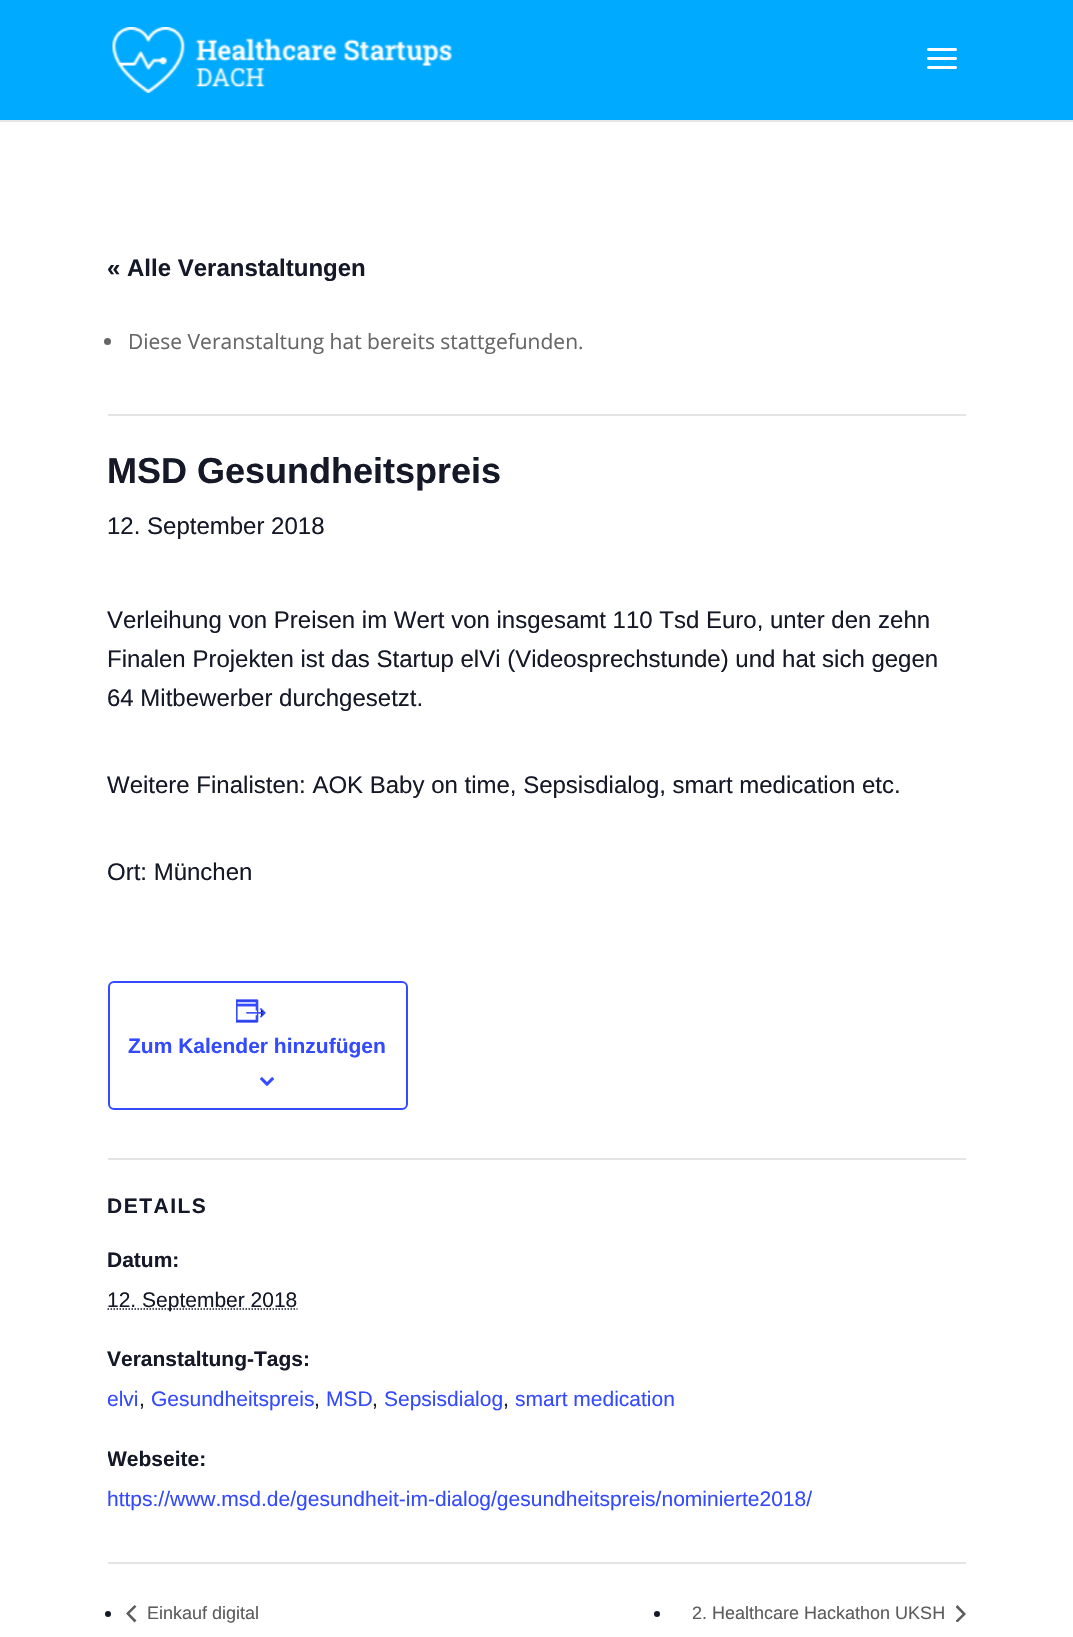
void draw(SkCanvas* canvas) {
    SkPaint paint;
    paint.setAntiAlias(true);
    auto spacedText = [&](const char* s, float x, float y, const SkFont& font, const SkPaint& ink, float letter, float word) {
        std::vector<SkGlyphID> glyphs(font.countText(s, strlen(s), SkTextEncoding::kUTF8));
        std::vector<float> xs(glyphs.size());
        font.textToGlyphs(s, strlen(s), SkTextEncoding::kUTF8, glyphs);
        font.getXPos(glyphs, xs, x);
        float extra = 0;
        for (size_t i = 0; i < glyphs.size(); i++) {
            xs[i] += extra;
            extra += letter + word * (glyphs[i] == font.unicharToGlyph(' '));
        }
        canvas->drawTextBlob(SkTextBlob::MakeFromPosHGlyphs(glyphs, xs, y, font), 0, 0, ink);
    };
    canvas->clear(0xFFFFFFFF);
    paint.setColor(0xFFE6E6E6);
    canvas->drawRect(SkRect::MakeXYWH(0, 120, 1073, 2), paint);
    paint.setColor(0xFF00AAFF);
    canvas->drawRect(SkRect::MakeXYWH(0, 0, 1073, 120), paint);
    canvas->drawImageRect(SkImages::DeferredFromEncodedData(SkData::MakeFromFileName("img1.png")), SkRect::MakeXYWH(112, 27, 340, 66), SkSamplingOptions());
    canvas->drawImageRect(SkImages::DeferredFromEncodedData(SkData::MakeFromFileName("img2.png")), SkRect::MakeXYWH(927, 48, 30, 21), SkSamplingOptions());
    SkFont font1(fontMgr->matchFamilyStyle("Liberation Sans", SkFontStyle::Bold()), 24);
    font1.setSubpixel(true);
    paint.setColor(0xFF141827);
    canvas->drawString("« Alle Veranstaltungen", 107, 276, font1, paint);
    paint.setColor(0xFFE4E4E4);
    canvas->drawRect(SkRect::MakeXYWH(108, 414, 858, 2), paint);
    paint.setColor(0xFF666666);
    canvas->drawCircle(107.5f, 341.5f, 3.5f, paint);
    SkFont font2(fontMgr->matchFamilyStyle("Open Sans", SkFontStyle::Normal()), 21);
    font2.setSubpixel(true);
    canvas->drawString("Diese Veranstaltung hat bereits stattgefunden.", 128, 349, font2, paint);
    SkFont font3(fontMgr->matchFamilyStyle("Liberation Sans", SkFontStyle::Bold()), 36);
    font3.setSubpixel(true);
    paint.setColor(0xFF141827);
    canvas->drawString("MSD Gesundheitspreis", 107, 483, font3, paint);
    SkFont font4(fontMgr->matchFamilyStyle("Liberation Sans", SkFontStyle::Normal()), 24);
    font4.setSubpixel(true);
    canvas->drawString("12. September 2018", 107, 534, font4, paint);
    canvas->drawString("Verleihung von Preisen im Wert von insgesamt 110 Tsd Euro, unter den zehn", 107, 628, font4, paint);
    canvas->drawString("Finalen Projekten ist das Startup elVi (Videosprechstunde) und hat sich gegen", 107, 667, font4, paint);
    canvas->drawString("64 Mitbewerber durchgesetzt.", 107, 706, font4, paint);
    canvas->drawString("Weitere Finalisten: AOK Baby on time, Sepsisdialog, smart medication etc.", 107, 793, font4, paint);
    canvas->drawString("Ort: München", 107, 880, font4, paint);
    paint.setStyle(SkPaint::kStroke_Style);
    paint.setStrokeWidth(2);
    paint.setColor(0xFF334AFF);
    canvas->drawRoundRect(SkRect::MakeXYWH(109, 982, 298, 127), 5, 5, paint);
    canvas->drawImageRect(SkImages::DeferredFromEncodedData(SkData::MakeFromFileName("img3.png")), SkRect::MakeXYWH(236, 999, 30, 24), SkSamplingOptions());
    SkFont font5(fontMgr->matchFamilyStyle("Liberation Sans", SkFontStyle::Bold()), 21);
    font5.setSubpixel(true);
    paint.setStyle(SkPaint::kFill_Style);
    canvas->drawString("Zum Kalender hinzufügen", 128, 1053, font5, paint);
    canvas->drawImageRect(SkImages::DeferredFromEncodedData(SkData::MakeFromFileName("img4.png")), SkRect::MakeXYWH(260, 1077, 15, 9), SkSamplingOptions());
    paint.setColor(0xFFE4E4E4);
    canvas->drawRect(SkRect::MakeXYWH(108, 1158, 858, 2), paint);
    paint.setColor(0xFF141827);
    spacedText("DETAILS", 107, 1213, font5, paint, 1.5f, 0);
    canvas->drawString("Datum:", 107, 1267, font5, paint);
    paint.setStyle(SkPaint::kStroke_Style);
    paint.setStrokeWidth(1.5f);
    paint.setPathEffect(SkDashPathEffect::Make({{1.5f, 1.5f}}, 0));
    canvas->drawPath(SkPathBuilder().moveTo(107.5f, 1309).lineTo(297.5f, 1309).detach(), paint);
    paint.setPathEffect(nullptr);
    SkFont font6(fontMgr->matchFamilyStyle("Liberation Sans", SkFontStyle::Normal()), 21);
    font6.setSubpixel(true);
    paint.setStyle(SkPaint::kFill_Style);
    canvas->drawString("12. September 2018", 107, 1307, font6, paint);
    canvas->drawString("Veranstaltung-Tags:", 107, 1366, font5, paint);
    paint.setColor(0xFF334AFF);
    canvas->drawString("elvi", 107, 1406, font6, paint);
    paint.setColor(0xFF141827);
    canvas->drawString(",", 139, 1406, font6, paint);
    paint.setColor(0xFF334AFF);
    canvas->drawString("Gesundheitspreis", 151, 1406, font6, paint);
    paint.setColor(0xFF141827);
    canvas->drawString(",", 314, 1406, font6, paint);
    paint.setColor(0xFF334AFF);
    canvas->drawString("MSD", 326, 1406, font6, paint);
    paint.setColor(0xFF141827);
    canvas->drawString(",", 372, 1406, font6, paint);
    paint.setColor(0xFF334AFF);
    canvas->drawString("Sepsisdialog", 384, 1406, font6, paint);
    paint.setColor(0xFF141827);
    canvas->drawString(",", 503, 1406, font6, paint);
    paint.setColor(0xFF334AFF);
    canvas->drawString("smart medication", 515, 1406, font6, paint);
    canvas->save();
    canvas->clipRect(SkRect::MakeXYWH(108, 602, 858, 960));
    paint.setColor(0xFF141827);
    canvas->drawString("Webseite:", 107, 1466, font5, paint);
    canvas->restore();
    paint.setColor(0xFF334AFF);
    canvas->drawString("https://www.msd.de/gesundheit-im-dialog/gesundheitspreis/nominierte2018/", 107, 1506, font6, paint);
    paint.setColor(0xFFE4E4E4);
    canvas->drawRect(SkRect::MakeXYWH(108, 1562, 858, 2), paint);
    paint.setColor(0xFF141827);
    canvas->drawCircle(108, 1614, 3, paint);
    paint.setColor(0xFF5D5D5D);
    canvas->drawPath(SkPathBuilder().moveTo(136.5f, 1620.5f).lineTo(134.5f, 1622.5f).lineTo(126, 1613.5f).lineTo(134.5f, 1605).lineTo(136.5f, 1606.5f).lineTo(129.5f, 1613.5f).close().detach(), paint);
    SkFont font7(fontMgr->matchFamilyStyle("Liberation Sans", SkFontStyle::Normal()), 18);
    font7.setSubpixel(true);
    canvas->drawString("Einkauf digital", 147, 1619, font7, paint);
    paint.setColor(0xFF141827);
    canvas->drawCircle(657, 1614, 3, paint);
    paint.setColor(0xFF5D5D5D);
    canvas->drawString("2. Healthcare Hackathon UKSH", 692, 1619, font7, paint);
    canvas->save();
    canvas->clipRect(SkRect::MakeXYWH(956, 1605, 10, 17));
    canvas->drawPath(SkPathBuilder().moveTo(955.5f, 1607).lineTo(957.5f, 1605).lineTo(966, 1614).lineTo(957.5f, 1622.5f).lineTo(955.5f, 1621).lineTo(962.5f, 1614).close().detach(), paint);
    canvas->restore();
}
